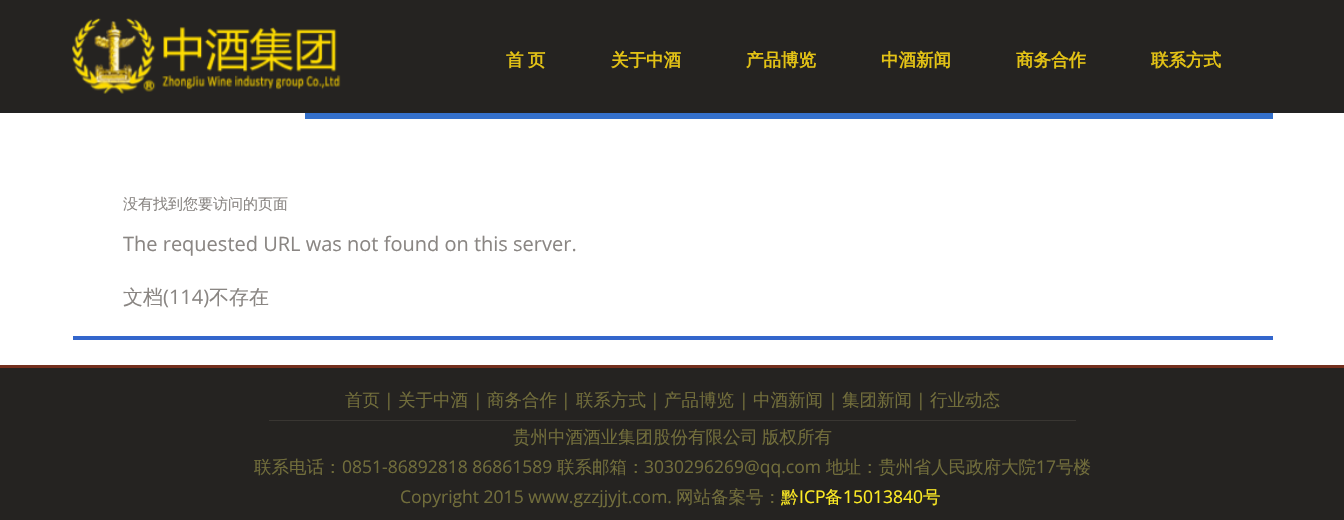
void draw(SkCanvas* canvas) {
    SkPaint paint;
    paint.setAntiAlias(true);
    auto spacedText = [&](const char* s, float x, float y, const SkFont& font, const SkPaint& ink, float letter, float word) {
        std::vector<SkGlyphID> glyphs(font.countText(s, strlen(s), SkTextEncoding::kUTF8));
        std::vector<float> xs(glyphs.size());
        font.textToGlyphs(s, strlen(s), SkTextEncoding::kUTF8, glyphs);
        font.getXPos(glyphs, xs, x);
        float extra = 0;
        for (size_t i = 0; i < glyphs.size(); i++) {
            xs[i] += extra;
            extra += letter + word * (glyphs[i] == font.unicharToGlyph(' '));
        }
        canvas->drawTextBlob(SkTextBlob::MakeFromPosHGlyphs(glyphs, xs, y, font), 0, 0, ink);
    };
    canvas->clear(0xFFFFFFFF);
    paint.setColor(0xFF252321);
    canvas->drawRect(SkRect::MakeXYWH(0, 0, 1344, 110), paint);
    paint.setColor(0xFF222222);
    canvas->drawRect(SkRect::MakeXYWH(0, 110, 1344, 3), paint);
    canvas->drawImageRect(SkImages::DeferredFromEncodedData(SkData::MakeFromFileName("img1.png")), SkRect::MakeXYWH(72, 18, 269, 76), SkSamplingOptions());
    SkFont font1(fontMgr->matchFamilyStyle("WenQuanYi Zen Hei", SkFontStyle::Bold()), 17.5f);
    font1.setSubpixel(true);
    paint.setColor(0xFFE3C215);
    spacedText("首 页", 506, 66, font1, paint, 0, -1);
    canvas->drawString("关于中酒", 611, 66, font1, paint);
    canvas->drawString("产品博览", 746, 66, font1, paint);
    canvas->drawString("中酒新闻", 881, 66, font1, paint);
    canvas->drawString("商务合作", 1016, 66, font1, paint);
    canvas->drawString("联系方式", 1151, 66, font1, paint);
    paint.setColor(0xFF3370CC);
    canvas->drawRect(SkRect::MakeXYWH(305, 113, 968, 6), paint);
    SkFont font2(fontMgr->matchFamilyStyle("WenQuanYi Zen Hei", SkFontStyle(500, SkFontStyle::kNormal_Width, SkFontStyle::kUpright_Slant)), 15);
    font2.setSubpixel(true);
    paint.setColor(0xFF8A8683);
    canvas->drawString("没有找到您要访问的页面", 123, 209, font2, paint);
    SkFont font3(fontMgr->matchFamilyStyle("Open Sans", SkFontStyle::Normal()), 20);
    font3.setSubpixel(true);
    canvas->drawString("The requested URL was not found on this server.", 123, 251, font3, paint);
    SkFont font4(fontMgr->matchFamilyStyle("WenQuanYi Zen Hei", SkFontStyle(500, SkFontStyle::kNormal_Width, SkFontStyle::kUpright_Slant)), 20);
    font4.setSubpixel(true);
    canvas->drawString("文档", 123, 304, font4, paint);
    canvas->drawString("(114)", 163, 304, font3, paint);
    canvas->drawString("不存在", 209, 304, font4, paint);
    paint.setColor(0xFF3366CC);
    canvas->drawRect(SkRect::MakeXYWH(73, 336, 1200, 4), paint);
    paint.setColor(0xFF252321);
    canvas->drawRect(SkRect::MakeXYWH(0, 368, 1344, 152), paint);
    paint.setColor(0xFF74301E);
    canvas->drawRect(SkRect::MakeXYWH(0, 365, 1344, 3), paint);
    paint.setColor(0xFF393632);
    canvas->drawRect(SkRect::MakeXYWH(269, 420, 807, 1), paint);
    SkFont font5(fontMgr->matchFamilyStyle("WenQuanYi Zen Hei", SkFontStyle(500, SkFontStyle::kNormal_Width, SkFontStyle::kUpright_Slant)), 17.5f);
    font5.setSubpixel(true);
    paint.setColor(0xFF716D3B);
    canvas->drawString("首页", 345, 406, font5, paint);
    SkFont font6(fontMgr->matchFamilyStyle("Open Sans", SkFontStyle::Normal()), 17.5f);
    font6.setSubpixel(true);
    canvas->drawString("|", 384, 406, font6, paint);
    canvas->drawString("关于中酒", 398, 406, font5, paint);
    canvas->drawString("|", 473, 406, font6, paint);
    canvas->drawString("商务合作", 487, 406, font5, paint);
    canvas->drawString("|", 561, 406, font6, paint);
    canvas->drawString("联系方式", 576, 406, font5, paint);
    canvas->drawString("|", 650, 406, font6, paint);
    canvas->drawString("产品博览", 664, 406, font5, paint);
    canvas->drawString("|", 739, 406, font6, paint);
    canvas->drawString("中酒新闻", 753, 406, font5, paint);
    canvas->drawString("|", 828, 406, font6, paint);
    canvas->drawString("集团新闻", 842, 406, font5, paint);
    canvas->drawString("|", 916, 406, font6, paint);
    canvas->drawString("行业动态", 930, 406, font5, paint);
    canvas->drawString("贵州中酒酒业集团股份有限公司", 513, 443, font5, paint);
    canvas->drawString("版权所有", 762, 443, font5, paint);
    canvas->drawString("联系电话：", 254, 473, font5, paint);
    canvas->drawString("0851-86892818 86861589", 342, 473, font6, paint);
    canvas->drawString("联系邮箱：", 557, 473, font5, paint);
    canvas->drawString("3030296269@qq.com", 644, 473, font6, paint);
    canvas->drawString("地址：贵州省人民政府大院", 826, 473, font5, paint);
    canvas->drawString("17", 1036, 473, font6, paint);
    canvas->drawString("号楼", 1056, 473, font5, paint);
    canvas->drawString("Copyright 2015 www.gzzjjyjt.com.", 400, 503, font6, paint);
    canvas->drawString("网站备案号：", 676, 503, font5, paint);
    paint.setColor(0xFFFDEB24);
    canvas->drawString("黔", 781, 503, font5, paint);
    canvas->drawString("ICP", 799, 503, font6, paint);
    canvas->drawString("备", 825, 503, font5, paint);
    canvas->drawString("15013840", 843, 503, font6, paint);
    canvas->drawString("号", 923, 503, font5, paint);
}
